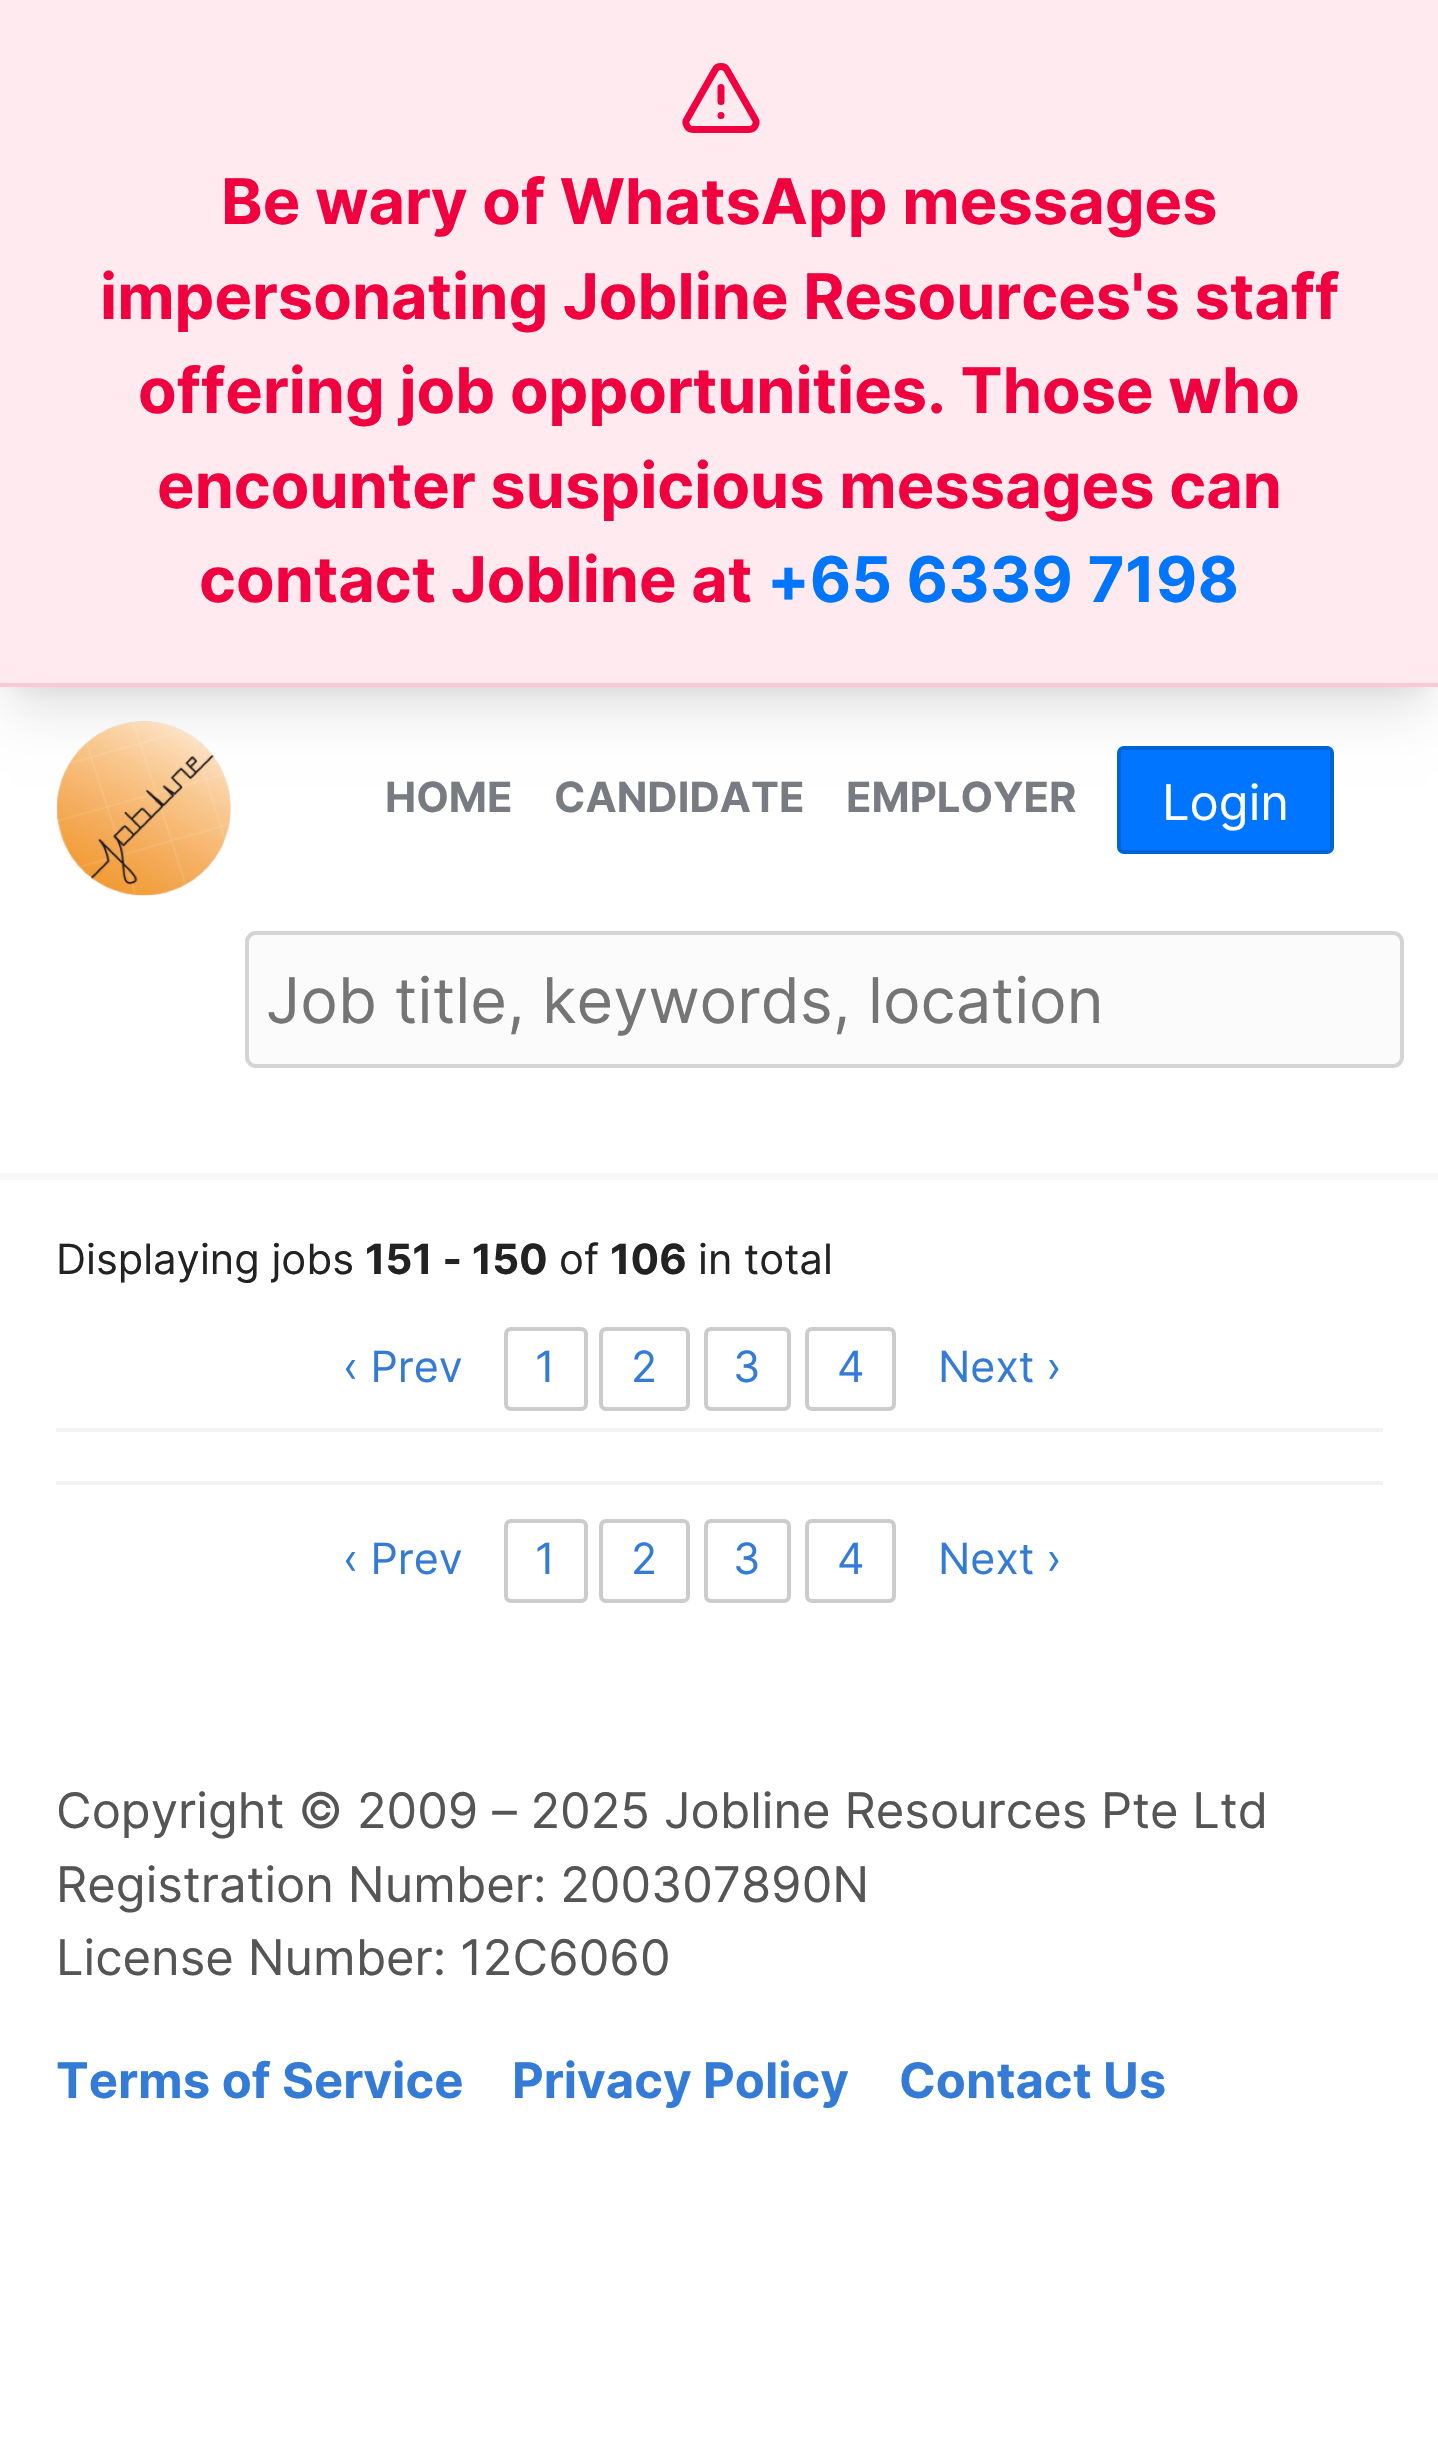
void draw(SkCanvas* canvas) {
    SkPaint paint;
    paint.setAntiAlias(true);
    canvas->clear(0xFFFFFFFF);
    paint.setColor(0x1A000000);
    paint.setMaskFilter(SkMaskFilter::MakeBlur(kNormal_SkBlurStyle, 10.5f));
    canvas->drawRect(SkRect::MakeXYWH(14, 28, 1411, 658), paint);
    paint.setMaskFilter(nullptr);
    paint.setMaskFilter(SkMaskFilter::MakeBlur(kNormal_SkBlurStyle, 26));
    canvas->drawRect(SkRect::MakeXYWH(11, 46, 1417, 665), paint);
    paint.setMaskFilter(nullptr);
    paint.setColor(0xFFFFEAF0);
    canvas->drawRect(SkRect::MakeXYWH(0, 0, 1438, 683), paint);
    paint.setColor(0xFFFFC7D7);
    canvas->drawRect(SkRect::MakeXYWH(0, 683, 1438, 4), paint);
    paint.setStyle(SkPaint::kStroke_Style);
    paint.setStrokeWidth(7);
    paint.setStrokeCap(SkPaint::kRound_Cap);
    paint.setStrokeJoin(SkPaint::kRound_Join);
    paint.setColor(0xFFF1003F);
    canvas->drawPath(SkPathBuilder().moveTo(755, 119).lineTo(727, 70).cubicTo(726, 68, 723.5f, 66.5f, 721, 66.5f).cubicTo(718.5f, 66.5f, 716, 68, 715, 70).lineTo(687, 119).cubicTo(685.5f, 121, 685.5f, 124, 687, 126).cubicTo(688, 128, 690.5f, 129.5f, 693, 129.5f).lineTo(749, 129.5f).cubicTo(751.5f, 129.5f, 754, 128, 755, 126).cubicTo(756.5f, 124, 756.5f, 121, 755, 119).detach(), paint);
    canvas->drawPath(SkPathBuilder().moveTo(721, 87.5f).lineTo(721, 101.5f).moveTo(721, 115.5f).lineTo(721, 115.5f).detach(), paint);
    SkFont font1(fontMgr->matchFamilyStyle("Inter", SkFontStyle::Bold()), 63);
    font1.setSubpixel(true);
    paint.setStyle(SkPaint::kFill_Style);
    canvas->drawString("Be wary of WhatsApp messages", 221, 224, font1, paint);
    canvas->drawString("impersonating Jobline Resources's staff", 100, 319, font1, paint);
    canvas->drawString("offering job opportunities. Those who", 138, 413, font1, paint);
    canvas->drawString("encounter suspicious messages can", 157, 508, font1, paint);
    canvas->drawString("contact Jobline at", 199, 602, font1, paint);
    paint.setColor(0xFF0076FF);
    canvas->drawString("+65 6339 7198", 767, 602, font1, paint);
    paint.setColor(0xFFF8F8F8);
    canvas->drawRect(SkRect::MakeXYWH(0, 1173, 1438, 7), paint);
    canvas->drawImageRect(SkImages::DeferredFromEncodedData(SkData::MakeFromFileName("img1.png")), SkRect::MakeXYWH(56, 721, 175, 175), SkSamplingOptions());
    SkFont font2(fontMgr->matchFamilyStyle("Inter", SkFontStyle::Bold()), 41.75f);
    font2.setSubpixel(true);
    paint.setColor(0xFF787C82);
    canvas->drawString("HOME", 385, 812, font2, paint);
    canvas->drawString("CANDIDATE", 554, 812, font2, paint);
    canvas->drawString("EMPLOYER", 846, 812, font2, paint);
    paint.setColor(0xFF0075FF);
    canvas->drawRoundRect(SkRect::MakeXYWH(1117, 746, 217, 108), 7, 7, paint);
    paint.setStyle(SkPaint::kStroke_Style);
    paint.setStrokeWidth(4);
    paint.setStrokeCap(SkPaint::kButt_Cap);
    paint.setStrokeJoin(SkPaint::kMiter_Join);
    paint.setColor(0x26000000);
    canvas->drawRoundRect(SkRect::MakeXYWH(1119, 748, 213, 104), 5, 5, paint);
    SkFont font3(fontMgr->matchFamilyStyle("Inter", SkFontStyle::Normal()), 49);
    font3.setSubpixel(true);
    paint.setStyle(SkPaint::kFill_Style);
    paint.setColor(0xFFFFFFFF);
    canvas->drawString("Login", 1162, 820, font3, paint);
    paint.setColor(0xFFFBFBFB);
    canvas->drawRoundRect(SkRect::MakeXYWH(247, 933, 1155, 133), 9, 9, paint);
    paint.setStyle(SkPaint::kStroke_Style);
    paint.setColor(0xFFD4D4D4);
    canvas->drawRoundRect(SkRect::MakeXYWH(247, 933, 1155, 133), 9, 9, paint);
    SkFont font4(fontMgr->matchFamilyStyle("Inter", SkFontStyle::Normal()), 63);
    font4.setSubpixel(true);
    paint.setStyle(SkPaint::kFill_Style);
    paint.setColor(0xFF757575);
    canvas->drawString("Job title, keywords, location", 266, 1023, font4, paint);
    paint.setColor(0xFFF2F2F2);
    canvas->drawRect(SkRect::MakeXYWH(56, 1428, 1327, 4), paint);
    SkFont font5(fontMgr->matchFamilyStyle("Inter", SkFontStyle::Normal()), 41.75f);
    font5.setSubpixel(true);
    paint.setColor(0xFF222222);
    canvas->drawString("Displaying jobs", 56, 1274, font5, paint);
    canvas->drawString("151 - 150", 365, 1274, font2, paint);
    canvas->drawString("of", 559, 1274, font5, paint);
    canvas->drawString("106", 610, 1274, font2, paint);
    canvas->drawString("in total", 698, 1274, font5, paint);
    SkFont font6(fontMgr->matchFamilyStyle("Inter", SkFontStyle::Normal()), 43);
    font6.setSubpixel(true);
    paint.setColor(0xFF337BD6);
    canvas->drawString("‹ Prev", 343, 1382, font6, paint);
    paint.setStyle(SkPaint::kStroke_Style);
    paint.setColor(0xFFCCCCCC);
    canvas->drawRoundRect(SkRect::MakeXYWH(506, 1329, 80, 80), 5, 5, paint);
    paint.setStyle(SkPaint::kFill_Style);
    paint.setColor(0xFF337BD6);
    canvas->drawString("1", 535, 1382, font6, paint);
    paint.setStyle(SkPaint::kStroke_Style);
    paint.setColor(0xFFCCCCCC);
    canvas->drawRoundRect(SkRect::MakeXYWH(601, 1329, 87, 80), 5, 5, paint);
    paint.setStyle(SkPaint::kFill_Style);
    paint.setColor(0xFF337BD6);
    canvas->drawString("2", 631, 1382, font6, paint);
    paint.setStyle(SkPaint::kStroke_Style);
    paint.setColor(0xFFCCCCCC);
    canvas->drawRoundRect(SkRect::MakeXYWH(706, 1329, 83, 80), 5, 5, paint);
    paint.setStyle(SkPaint::kFill_Style);
    paint.setColor(0xFF337BD6);
    canvas->drawString("3", 733, 1382, font6, paint);
    paint.setStyle(SkPaint::kStroke_Style);
    paint.setColor(0xFFCCCCCC);
    canvas->drawRoundRect(SkRect::MakeXYWH(807, 1329, 87, 80), 5, 5, paint);
    paint.setStyle(SkPaint::kFill_Style);
    paint.setColor(0xFF337BD6);
    canvas->drawString("4", 837, 1382, font6, paint);
    canvas->drawString("Next ›", 938, 1382, font6, paint);
    paint.setColor(0xFFF2F2F2);
    canvas->drawRect(SkRect::MakeXYWH(56, 1481, 1327, 4), paint);
    paint.setColor(0xFF337BD6);
    canvas->drawString("‹ Prev", 343, 1574, font6, paint);
    paint.setStyle(SkPaint::kStroke_Style);
    paint.setColor(0xFFCCCCCC);
    canvas->drawRoundRect(SkRect::MakeXYWH(506, 1521, 80, 80), 5, 5, paint);
    paint.setStyle(SkPaint::kFill_Style);
    paint.setColor(0xFF337BD6);
    canvas->drawString("1", 535, 1574, font6, paint);
    paint.setStyle(SkPaint::kStroke_Style);
    paint.setColor(0xFFCCCCCC);
    canvas->drawRoundRect(SkRect::MakeXYWH(601, 1521, 87, 80), 5, 5, paint);
    paint.setStyle(SkPaint::kFill_Style);
    paint.setColor(0xFF337BD6);
    canvas->drawString("2", 631, 1574, font6, paint);
    paint.setStyle(SkPaint::kStroke_Style);
    paint.setColor(0xFFCCCCCC);
    canvas->drawRoundRect(SkRect::MakeXYWH(706, 1521, 83, 80), 5, 5, paint);
    paint.setStyle(SkPaint::kFill_Style);
    paint.setColor(0xFF337BD6);
    canvas->drawString("3", 733, 1574, font6, paint);
    paint.setStyle(SkPaint::kStroke_Style);
    paint.setColor(0xFFCCCCCC);
    canvas->drawRoundRect(SkRect::MakeXYWH(807, 1521, 87, 80), 5, 5, paint);
    paint.setStyle(SkPaint::kFill_Style);
    paint.setColor(0xFF337BD6);
    canvas->drawString("4", 837, 1574, font6, paint);
    canvas->drawString("Next ›", 938, 1574, font6, paint);
    paint.setColor(0xFF555555);
    canvas->drawString("Copyright © 2009 – 2025 Jobline Resources Pte Ltd", 56, 1828, font3, paint);
    canvas->drawString("Registration Number: 200307890N", 56, 1902, font3, paint);
    canvas->drawString("License Number: 12C6060", 56, 1975, font3, paint);
    SkFont font7(fontMgr->matchFamilyStyle("Inter", SkFontStyle::Bold()), 49);
    font7.setSubpixel(true);
    paint.setColor(0xFF337BD6);
    canvas->drawString("Terms of Service", 56, 2098, font7, paint);
    canvas->drawString("Privacy Policy", 512, 2098, font7, paint);
    canvas->drawString("Contact Us", 899, 2098, font7, paint);
}
